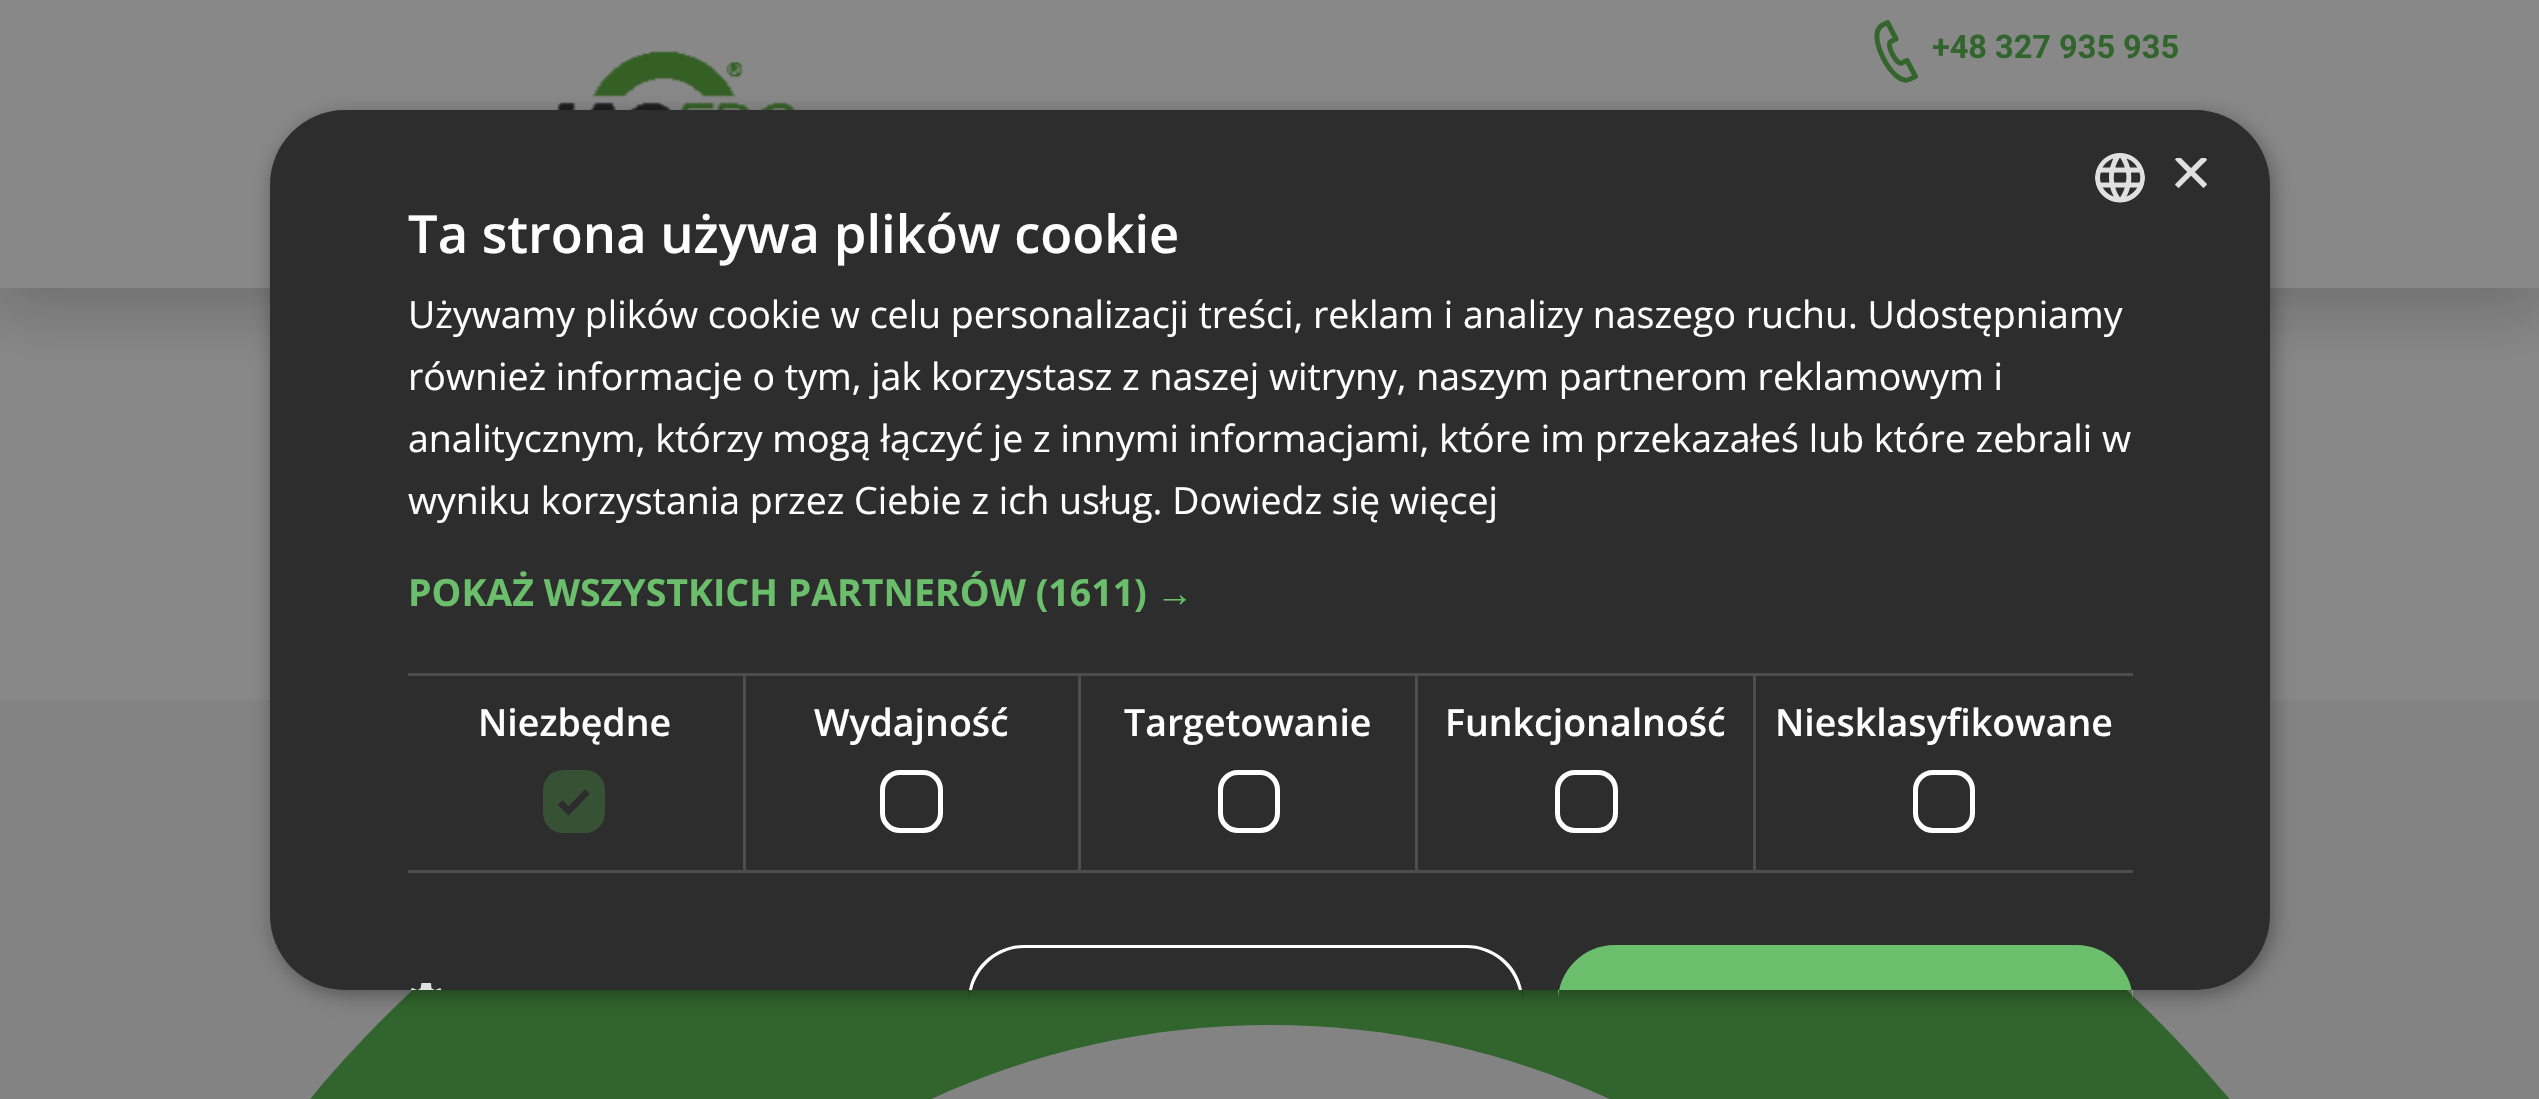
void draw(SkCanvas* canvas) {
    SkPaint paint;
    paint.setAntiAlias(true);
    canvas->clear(0xFF838383);
    paint.setColor(0xFF888888);
    canvas->drawRect(SkRect::MakeXYWH(0, 288, 2539, 412), paint);
    paint.setColor(0x33090909);
    paint.setMaskFilter(SkMaskFilter::MakeBlur(kNormal_SkBlurStyle, 31));
    canvas->drawRect(SkRect::MakeXYWH(-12, 0, 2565, 313), paint);
    paint.setMaskFilter(nullptr);
    paint.setColor(0xFF888888);
    canvas->drawRect(SkRect::MakeXYWH(0, 0, 2539, 288), paint);
    paint.setStyle(SkPaint::kStroke_Style);
    paint.setStrokeWidth(5);
    paint.setStrokeCap(SkPaint::kRound_Cap);
    paint.setStrokeJoin(SkPaint::kRound_Join);
    paint.setColor(0xFF33652D);
    canvas->drawPath(SkPathBuilder().moveTo(1915.5f, 76.5f).lineTo(1907, 60.5f).lineTo(1902, 63).cubicTo(1896.5f, 65.5f, 1885.5f, 44, 1891, 41.5f).lineTo(1896, 39).lineTo(1887.5f, 22.5f).cubicTo(1885, 23.5f, 1882, 25, 1880, 27).cubicTo(1873, 34.5f, 1879.5f, 50.5f, 1883, 57.5f).cubicTo(1886, 64, 1890.5f, 70.5f, 1896, 75.5f).cubicTo(1904.5f, 82.5f, 1908, 80.5f, 1915.5f, 76.5f).close().detach(), paint);
    SkFont font1(fontMgr->matchFamilyStyle("Roboto", SkFontStyle::Bold()), 32.5f);
    font1.setSubpixel(true);
    paint.setStyle(SkPaint::kFill_Style);
    paint.setColor(0xFF31652D);
    canvas->drawString("+48 327 935 935", 1932, 58, font1, paint);
    canvas->drawImageRect(SkImages::DeferredFromEncodedData(SkData::MakeFromFileName("img1.png")), SkRect::MakeXYWH(557, 51, 239, 59), SkSamplingOptions());
    canvas->drawPath(SkPathBuilder().moveTo(1270, 650).cubicTo(1960.5f, 650, 2520, 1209.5f, 2520, 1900).lineTo(2520, 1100).lineTo(20, 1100).lineTo(20, 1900).cubicTo(20, 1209.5f, 579.5f, 650, 1270, 650).close().detach(), paint);
    paint.setColor(0xFF838383);
    canvas->drawPath(SkPathBuilder().moveTo(1270.5f, 1025).cubicTo(1719, 1025, 2083, 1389, 2083, 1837.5f).lineTo(2083, 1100).lineTo(458, 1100).lineTo(458, 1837.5f).cubicTo(458, 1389, 822, 1025, 1270.5f, 1025).close().detach(), paint);
    paint.setColor(0x59000000);
    paint.setMaskFilter(SkMaskFilter::MakeBlur(kNormal_SkBlurStyle, 10));
    canvas->drawRoundRect(SkRect::MakeXYWH(273, 115, 2000, 880), 75, 75, paint);
    paint.setMaskFilter(nullptr);
    paint.setColor(0xFF2D2D2D);
    canvas->drawRoundRect(SkRect::MakeXYWH(270, 110, 2000, 880), 75, 75, paint);
    canvas->drawImageRect(SkImages::DeferredFromEncodedData(SkData::MakeFromFileName("img2.png")), SkRect::MakeXYWH(2095, 153, 50, 50), SkSamplingOptions());
    canvas->save();
    canvas->clipRect(SkRect::MakeXYWH(2170, 158, 38, 37));
    SkFont font2(fontMgr->matchFamilyStyle("Liberation Sans", SkFontStyle::Normal()), 72);
    font2.setSubpixel(true);
    paint.setColor(0xFFE0E0E0);
    canvas->drawString("×", 2170, 196, font2, paint);
    canvas->restore();
    SkFont font3(fontMgr->matchFamilyStyle("Open Sans", SkFontStyle(600, SkFontStyle::kNormal_Width, SkFontStyle::kUpright_Slant)), 52.5f);
    font3.setSubpixel(true);
    paint.setColor(0xFFFFFFFF);
    canvas->drawString("Ta strona używa plików cookie", 408, 253, font3, paint);
    SkFont font4(fontMgr->matchFamilyStyle("Open Sans", SkFontStyle::Normal()), 37.5f);
    font4.setSubpixel(true);
    canvas->drawString("Używamy plików cookie w celu personalizacji treści, reklam i analizy naszego ruchu. Udostępniamy", 408, 328, font4, paint);
    canvas->drawString("również informacje o tym, jak korzystasz z naszej witryny, naszym partnerom reklamowym i", 408, 390, font4, paint);
    canvas->drawString("analitycznym, którzy mogą łączyć je z innymi informacjami, które im przekazałeś lub które zebrali w", 408, 452, font4, paint);
    canvas->drawString("wyniku korzystania przez Ciebie z ich usług. Dowiedz się więcej", 408, 514, font4, paint);
    SkFont font5(fontMgr->matchFamilyStyle("Open Sans", SkFontStyle::Bold()), 37.5f);
    font5.setSubpixel(true);
    paint.setColor(0xFF6BBE6B);
    canvas->drawString("POKAŻ WSZYSTKICH PARTNERÓW (1611)", 408, 606, font5, paint);
    SkFont font6(fontMgr->matchFamilyStyle("Liberation Sans", SkFontStyle::Bold()), 37.5f);
    font6.setSubpixel(true);
    canvas->drawString("→", 1156, 606, font6, paint);
    paint.setColor(0xFF4D4D4D);
    canvas->drawRect(SkRect::MakeXYWH(408, 673, 337, 3), paint);
    canvas->drawRect(SkRect::MakeXYWH(743, 673, 3, 200), paint);
    canvas->drawRect(SkRect::MakeXYWH(408, 870, 337, 3), paint);
    SkFont font7(fontMgr->matchFamilyStyle("Open Sans", SkFontStyle(600, SkFontStyle::kNormal_Width, SkFontStyle::kUpright_Slant)), 37.5f);
    font7.setSubpixel(true);
    paint.setColor(0xFFFFFFFF);
    canvas->drawString("Niezbędne", 478, 736, font7, paint);
    paint.setColor(0xFF365134);
    canvas->drawRoundRect(SkRect::MakeXYWH(543, 770, 62, 63), 20, 20, paint);
    paint.setStyle(SkPaint::kStroke_Style);
    paint.setStrokeWidth(6.6f);
    paint.setStrokeCap(SkPaint::kButt_Cap);
    paint.setStrokeJoin(SkPaint::kMiter_Join);
    paint.setColor(0xFF2D2D2D);
    canvas->drawPath(SkPathBuilder().moveTo(560, 802.5f).lineTo(568.5f, 811).lineTo(587.5f, 791.5f).detach(), paint);
    paint.setStyle(SkPaint::kFill_Style);
    paint.setColor(0xFF4D4D4D);
    canvas->drawRect(SkRect::MakeXYWH(745, 673, 335, 3), paint);
    canvas->drawRect(SkRect::MakeXYWH(1078, 673, 3, 200), paint);
    canvas->drawRect(SkRect::MakeXYWH(745, 870, 335, 3), paint);
    paint.setColor(0xFFFFFFFF);
    canvas->drawString("Wydajność", 814, 736, font7, paint);
    paint.setStyle(SkPaint::kStroke_Style);
    paint.setStrokeWidth(5);
    canvas->drawRoundRect(SkRect::MakeXYWH(882.5f, 772.5f, 58, 58), 17.5f, 17.5f, paint);
    paint.setStyle(SkPaint::kFill_Style);
    paint.setColor(0xFF4D4D4D);
    canvas->drawRect(SkRect::MakeXYWH(1080, 673, 675, 3), paint);
    canvas->drawRect(SkRect::MakeXYWH(1415, 673, 3, 200), paint);
    canvas->drawRect(SkRect::MakeXYWH(1080, 870, 338, 3), paint);
    paint.setColor(0xFFFFFFFF);
    canvas->drawString("Targetowanie", 1124, 736, font7, paint);
    paint.setStyle(SkPaint::kStroke_Style);
    canvas->drawRoundRect(SkRect::MakeXYWH(1220.5f, 772.5f, 57, 58), 17.5f, 17.5f, paint);
    paint.setStyle(SkPaint::kFill_Style);
    paint.setColor(0xFF4D4D4D);
    canvas->drawRect(SkRect::MakeXYWH(1753, 673, 3, 200), paint);
    canvas->drawRect(SkRect::MakeXYWH(1418, 870, 715, 3), paint);
    paint.setColor(0xFFFFFFFF);
    canvas->drawString("Funkcjonalność", 1445, 736, font7, paint);
    paint.setStyle(SkPaint::kStroke_Style);
    canvas->drawRoundRect(SkRect::MakeXYWH(1557.5f, 772.5f, 58, 58), 17.5f, 17.5f, paint);
    paint.setStyle(SkPaint::kFill_Style);
    paint.setColor(0xFF4D4D4D);
    canvas->drawRect(SkRect::MakeXYWH(1755, 673, 378, 3), paint);
    paint.setColor(0xFFFFFFFF);
    canvas->drawString("Niesklasyfikowane", 1775, 736, font7, paint);
    paint.setStyle(SkPaint::kStroke_Style);
    canvas->drawRoundRect(SkRect::MakeXYWH(1915.5f, 772.5f, 57, 58), 17.5f, 17.5f, paint);
    canvas->drawImageRect(SkImages::DeferredFromEncodedData(SkData::MakeFromFileName("img3.png")), SkRect::MakeXYWH(410, 983, 32, 7), SkSamplingOptions());
    paint.setStyle(SkPaint::kFill_Style);
    paint.setColor(0xFF2D2D2D);
    canvas->drawPath(SkPathBuilder().moveTo(1024.5f, 945).lineTo(1466.5f, 945).cubicTo(1497.5f, 945, 1523, 970.5f, 1523, 1001.5f).lineTo(1523, 990).lineTo(968, 990).lineTo(968, 1001.5f).cubicTo(968, 970.5f, 993.5f, 945, 1024.5f, 945).close().detach(), paint);
    paint.setColor(0xFFFFFFFF);
    canvas->drawPath(SkPathBuilder().moveTo(1024, 945).cubicTo(997, 945, 974, 964, 969, 990).lineTo(972, 990).cubicTo(978, 966, 999, 948, 1024, 948).lineTo(1466, 948).cubicTo(1492, 948, 1513, 966, 1519, 990).lineTo(1522, 990).cubicTo(1517, 964, 1494, 945, 1466, 945).close().detach(), paint);
    paint.setColor(0xFF6BBE6B);
    canvas->drawPath(SkPathBuilder().moveTo(1614.5f, 945).lineTo(2076.5f, 945).cubicTo(2107.5f, 945, 2133, 970.5f, 2133, 1001.5f).lineTo(2133, 990).lineTo(1558, 990).lineTo(1558, 1001.5f).cubicTo(1558, 970.5f, 1583.5f, 945, 1614.5f, 945).close().detach(), paint);
}
